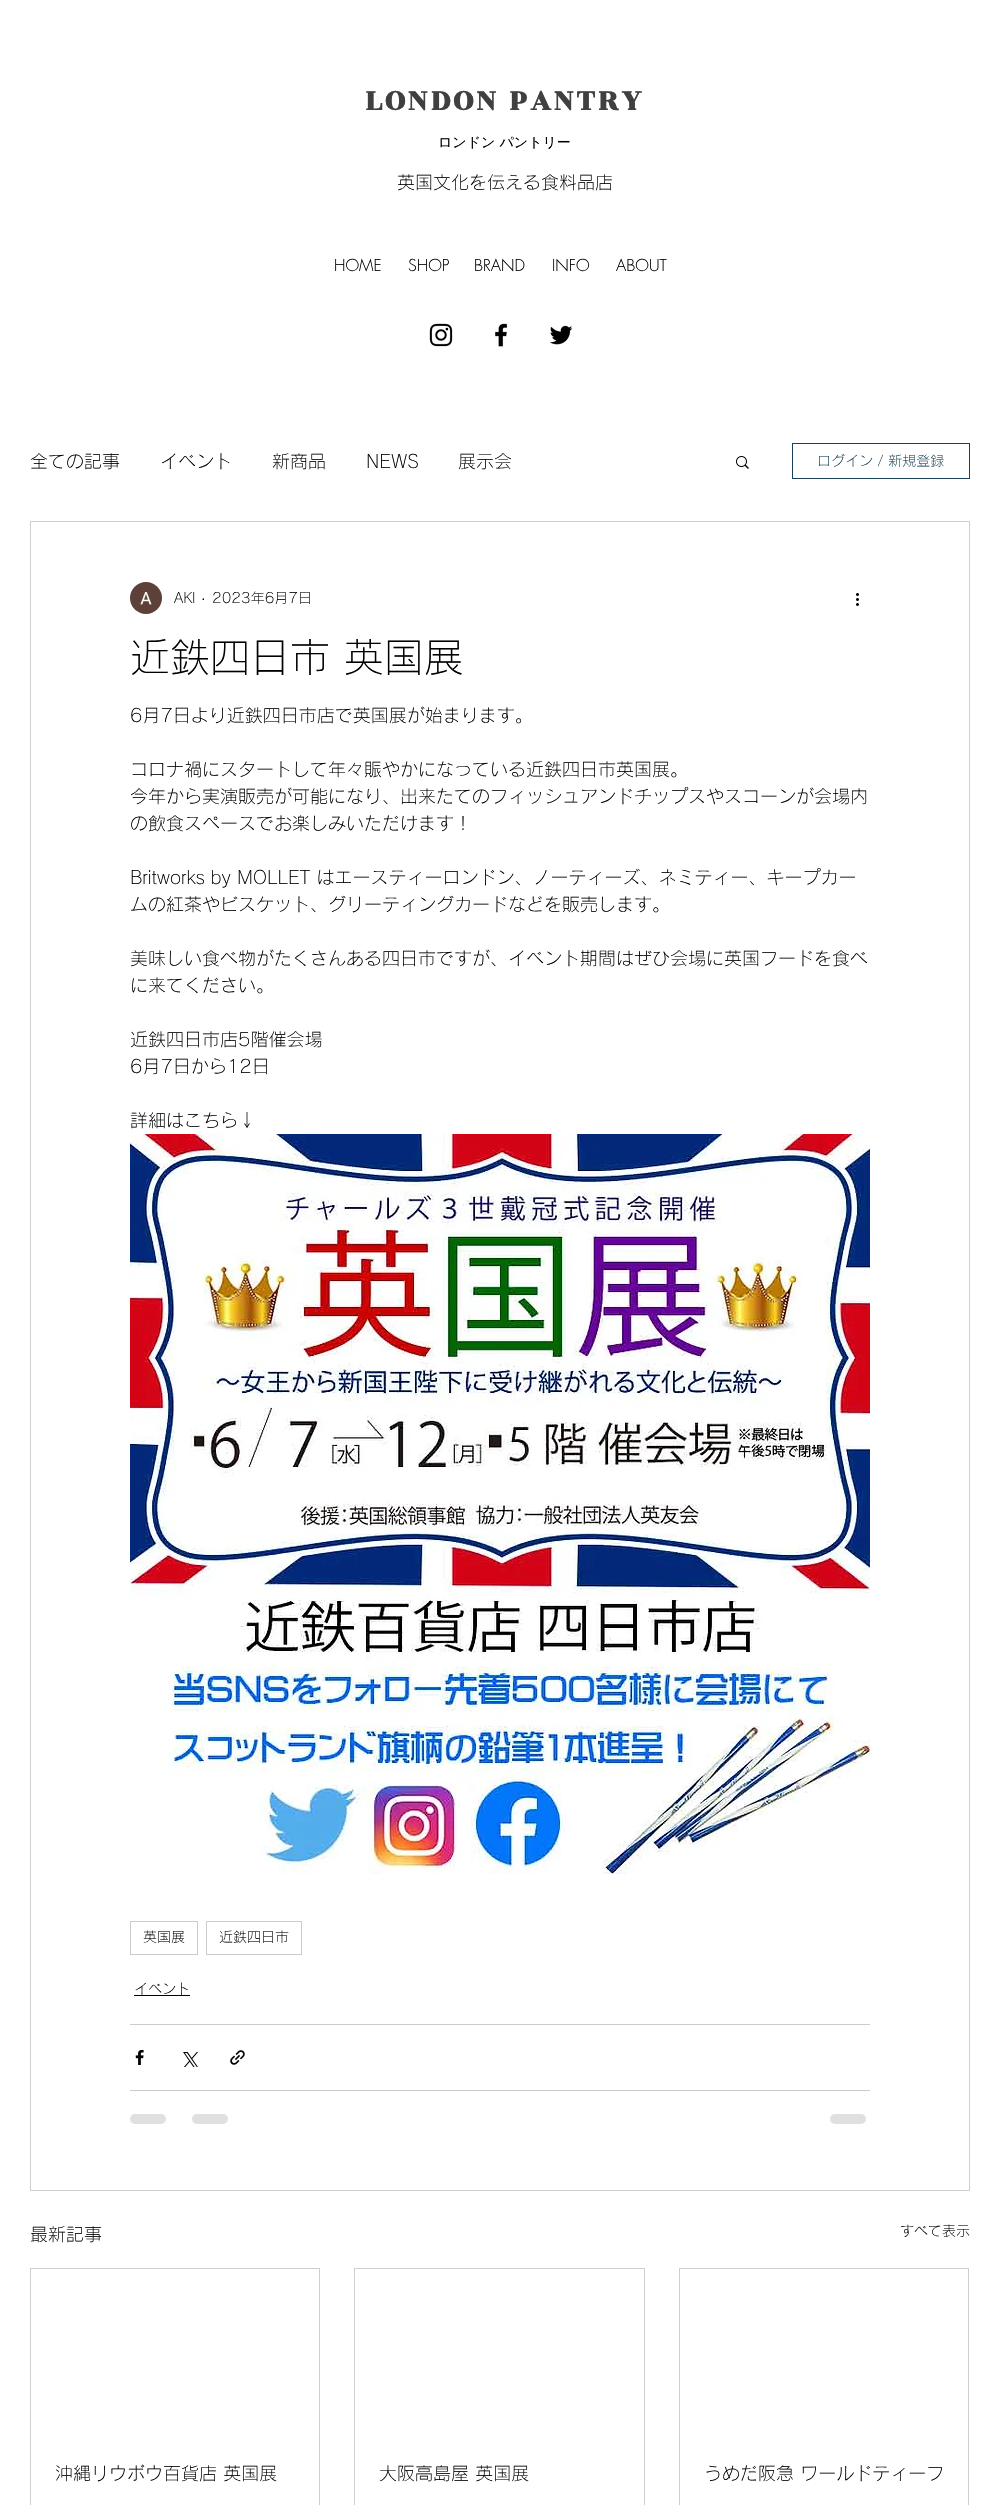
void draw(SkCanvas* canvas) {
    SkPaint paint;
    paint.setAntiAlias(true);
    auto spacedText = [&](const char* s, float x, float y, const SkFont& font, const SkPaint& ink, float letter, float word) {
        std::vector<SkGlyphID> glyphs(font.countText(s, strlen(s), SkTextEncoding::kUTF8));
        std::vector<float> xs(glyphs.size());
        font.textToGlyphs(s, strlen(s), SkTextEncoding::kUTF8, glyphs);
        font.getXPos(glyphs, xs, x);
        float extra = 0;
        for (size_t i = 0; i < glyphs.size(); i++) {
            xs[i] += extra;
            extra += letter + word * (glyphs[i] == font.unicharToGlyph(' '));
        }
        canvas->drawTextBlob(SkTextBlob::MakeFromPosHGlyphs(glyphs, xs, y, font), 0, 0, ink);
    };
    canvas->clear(0xFFFFFFFF);
    SkFont font1(fontMgr->matchFamilyStyle("Rozha One", SkFontStyle::Bold()), 32);
    font1.setSubpixel(true);
    paint.setColor(0xFF404040);
    spacedText("LONDON PANTRY", 365, 110, font1, paint, 3.25f, 0);
    SkFont font2(fontMgr->matchFamilyStyle("WenQuanYi Zen Hei", SkFontStyle(500, SkFontStyle::kNormal_Width, SkFontStyle::kUpright_Slant)), 14);
    font2.setSubpixel(true);
    paint.setColor(0xFF000000);
    canvas->drawString("ロンドン パントリー", 438, 147, font2, paint);
    SkFont font3(fontMgr->matchFamilyStyle("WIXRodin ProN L", SkFontStyle(300, SkFontStyle::kNormal_Width, SkFontStyle::kUpright_Slant)), 18);
    font3.setSubpixel(true);
    canvas->drawString("英国文化を伝える食料品店", 397, 189, font3, paint);
    SkFont font4(fontMgr->matchFamilyStyle("futura", SkFontStyle(300, SkFontStyle::kNormal_Width, SkFontStyle::kUpright_Slant)), 16);
    font4.setSubpixel(true);
    canvas->drawString("HOME", 334, 271, font4, paint);
    canvas->drawString("SHOP", 408, 271, font4, paint);
    canvas->drawString("BRAND", 474, 271, font4, paint);
    canvas->drawString("INFO", 552, 271, font4, paint);
    canvas->drawString("ABOUT", 616, 271, font4, paint);
    canvas->drawImageRect(SkImages::DeferredFromEncodedData(SkData::MakeFromFileName("img1.png")), SkRect::MakeXYWH(429, 323, 24, 24), SkSamplingOptions());
    canvas->drawImageRect(SkImages::DeferredFromEncodedData(SkData::MakeFromFileName("img2.png")), SkRect::MakeXYWH(495, 323, 13, 24), SkSamplingOptions());
    canvas->drawImageRect(SkImages::DeferredFromEncodedData(SkData::MakeFromFileName("img3.png")), SkRect::MakeXYWH(550, 325, 23, 20), SkSamplingOptions());
    canvas->drawString("全ての記事", 30, 468, font3, paint);
    canvas->drawString("イベント", 160, 468, font3, paint);
    canvas->drawString("新商品", 272, 468, font3, paint);
    canvas->drawString("NEWS", 366, 468, font3, paint);
    canvas->drawString("展示会", 458, 468, font3, paint);
    canvas->drawImageRect(SkImages::DeferredFromEncodedData(SkData::MakeFromFileName("img4.png")), SkRect::MakeXYWH(736, 456, 13, 13), SkSamplingOptions());
    paint.setStyle(SkPaint::kStroke_Style);
    paint.setStrokeWidth(1);
    paint.setColor(0xFF194056);
    canvas->drawRect(SkRect::MakeXYWH(792.5f, 443.5f, 177, 35), paint);
    SkFont font5(fontMgr->matchFamilyStyle("WIXRodin ProN L", SkFontStyle(300, SkFontStyle::kNormal_Width, SkFontStyle::kUpright_Slant)), 14);
    font5.setSubpixel(true);
    paint.setStyle(SkPaint::kFill_Style);
    canvas->drawString("ログイン / 新規登録", 817, 466, font5, paint);
    paint.setStyle(SkPaint::kStroke_Style);
    paint.setColor(0xFFCFCFCF);
    canvas->drawRect(SkRect::MakeXYWH(30.5f, 521.5f, 939, 1669), paint);
    canvas->drawImageRect(SkImages::DeferredFromEncodedData(SkData::MakeFromFileName("img5.png")), SkRect::MakeXYWH(130, 582, 32, 32), SkSamplingOptions());
    paint.setStyle(SkPaint::kFill_Style);
    paint.setColor(0xFF000000);
    canvas->drawString("AKI", 174, 603, font5, paint);
    SkFont font6(fontMgr->matchFamilyStyle("Liberation Sans", SkFontStyle::Normal()), 14);
    font6.setSubpixel(true);
    canvas->drawString("·", 201, 603, font6, paint);
    canvas->drawString("2023年6月7日", 212, 603, font5, paint);
    canvas->drawImageRect(SkImages::DeferredFromEncodedData(SkData::MakeFromFileName("img6.png")), SkRect::MakeXYWH(856, 593, 3, 13), SkSamplingOptions());
    SkFont font7(fontMgr->matchFamilyStyle("WIXRodin ProN L", SkFontStyle(300, SkFontStyle::kNormal_Width, SkFontStyle::kUpright_Slant)), 40);
    font7.setSubpixel(true);
    canvas->drawString("近鉄四日市 英国展", 130, 672, font7, paint);
    canvas->drawString("6月7日より近鉄四日市店で英国展が始まります。", 130, 722, font3, paint);
    canvas->drawString("コロナ禍にスタートして年々賑やかになっている近鉄四日市英国展。", 130, 776, font3, paint);
    canvas->drawString("今年から実演販売が可能になり、出来たてのフィッシュアンドチップスやスコーンが会場内", 130, 803, font3, paint);
    canvas->drawString("の飲食スペースでお楽しみいただけます！", 130, 830, font3, paint);
    canvas->drawString("Britworks by MOLLET はエースティーロンドン、ノーティーズ、ネミティー、キープカー", 130, 884, font3, paint);
    canvas->drawString("ムの紅茶やビスケット、グリーティングカードなどを販売します。", 130, 911, font3, paint);
    canvas->drawString("美味しい食べ物がたくさんある四日市ですが、イベント期間はぜひ会場に英国フードを食べ", 130, 965, font3, paint);
    canvas->drawString("に来てください。", 130, 992, font3, paint);
    canvas->drawString("近鉄四日市店5階催会場", 130, 1046, font3, paint);
    canvas->drawString("6月7日から12日", 130, 1073, font3, paint);
    canvas->drawString("詳細はこちら↓", 130, 1127, font3, paint);
    canvas->drawImageRect(SkImages::DeferredFromEncodedData(SkData::MakeFromFileName("img7.png")), SkRect::MakeXYWH(130, 1134, 740, 740), SkSamplingOptions());
    paint.setStyle(SkPaint::kStroke_Style);
    paint.setColor(0xFFCCCCCC);
    canvas->drawRect(SkRect::MakeXYWH(130.5f, 1921.5f, 67, 33), paint);
    paint.setStyle(SkPaint::kFill_Style);
    paint.setColor(0xFF000000);
    canvas->drawString("英国展", 143, 1942, font5, paint);
    paint.setStyle(SkPaint::kStroke_Style);
    paint.setColor(0xFFCCCCCC);
    canvas->drawRect(SkRect::MakeXYWH(206.5f, 1921.5f, 95, 33), paint);
    paint.setStyle(SkPaint::kFill_Style);
    paint.setColor(0xFF000000);
    canvas->drawString("近鉄四日市", 219, 1942, font5, paint);
    canvas->drawString("イベント", 134, 1994, font5, paint);
    canvas->drawRect(SkRect::MakeXYWH(134, 1995, 56, 1), paint);
    paint.setColor(0xFFCCCCCC);
    canvas->drawRect(SkRect::MakeXYWH(130, 2024, 740, 1), paint);
    canvas->drawImageRect(SkImages::DeferredFromEncodedData(SkData::MakeFromFileName("img8.png")), SkRect::MakeXYWH(135, 2050, 9, 15), SkSamplingOptions());
    canvas->drawImageRect(SkImages::DeferredFromEncodedData(SkData::MakeFromFileName("img9.png")), SkRect::MakeXYWH(183, 2052, 15, 15), SkSamplingOptions());
    canvas->drawImageRect(SkImages::DeferredFromEncodedData(SkData::MakeFromFileName("img10.png")), SkRect::MakeXYWH(230, 2050, 15, 15), SkSamplingOptions());
    canvas->drawRect(SkRect::MakeXYWH(130, 2090, 740, 1), paint);
    paint.setColor(0xFFE0E0E0);
    canvas->drawRoundRect(SkRect::MakeXYWH(130, 2114, 36, 10), 5, 5, paint);
    canvas->drawRoundRect(SkRect::MakeXYWH(192, 2114, 36, 10), 5, 5, paint);
    canvas->drawRoundRect(SkRect::MakeXYWH(830, 2114, 36, 10), 5, 5, paint);
    paint.setColor(0xFF000000);
    canvas->drawString("最新記事", 30, 2241, font3, paint);
    canvas->drawString("すべて表示", 900, 2236, font5, paint);
    paint.setStyle(SkPaint::kStroke_Style);
    paint.setColor(0xFFCFCFCF);
    canvas->drawRect(SkRect::MakeXYWH(30.5f, 2268.5f, 289, 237), paint);
    paint.setStyle(SkPaint::kFill_Style);
    paint.setColor(0xFF000000);
    canvas->drawString("沖縄リウボウ百貨店 英国展", 55, 2480, font3, paint);
    paint.setStyle(SkPaint::kStroke_Style);
    paint.setColor(0xFFCFCFCF);
    canvas->drawRect(SkRect::MakeXYWH(354.5f, 2268.5f, 290, 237), paint);
    paint.setStyle(SkPaint::kFill_Style);
    paint.setColor(0xFF000000);
    canvas->drawString("大阪高島屋 英国展", 379, 2480, font3, paint);
    paint.setStyle(SkPaint::kStroke_Style);
    paint.setColor(0xFFCFCFCF);
    canvas->drawRect(SkRect::MakeXYWH(679.5f, 2268.5f, 289, 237), paint);
    paint.setStyle(SkPaint::kFill_Style);
    paint.setColor(0xFF000000);
    canvas->drawString("うめだ阪急 ワールドティーフ", 704, 2480, font3, paint);
}
